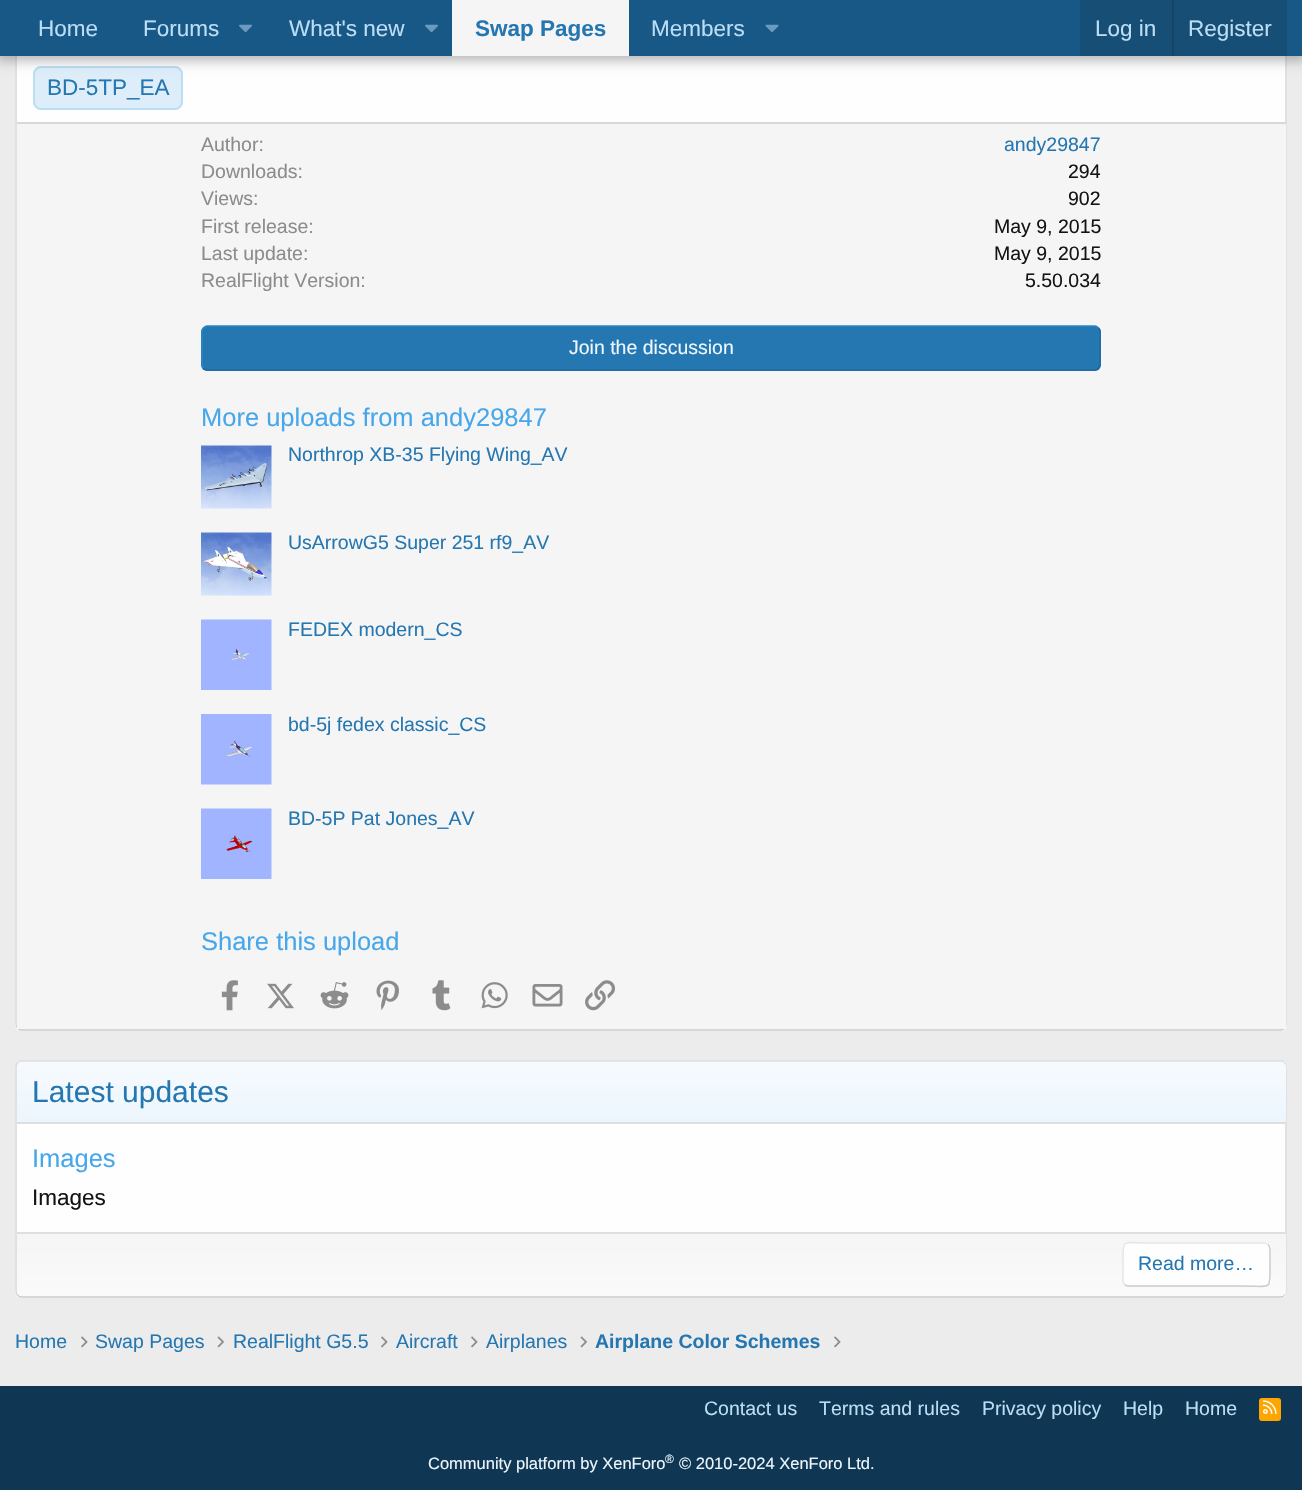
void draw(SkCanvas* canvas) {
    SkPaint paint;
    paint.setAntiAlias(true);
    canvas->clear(0xFFECECEC);
    paint.setColor(0xFFFEFEFE);
    canvas->drawRoundRect(SkRect::MakeXYWH(15, -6, 1272, 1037), 6, 6, paint);
    paint.setStyle(SkPaint::kStroke_Style);
    paint.setStrokeWidth(1.5f);
    paint.setColor(0xFFD8D8D8);
    canvas->drawPath(SkPathBuilder().moveTo(1284.5f, -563).cubicTo(1285.5f, -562, 1286, -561, 1286, -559.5f).lineTo(1286, 1024.5f).cubicTo(1286, 1026, 1285.5f, 1027, 1284.5f, 1028).detach(), paint);
    paint.setColor(0xFFCBCBCB);
    canvas->drawPath(SkPathBuilder().moveTo(1284.5f, 1028).cubicTo(1283.5f, 1029, 1282.5f, 1030, 1281, 1030).lineTo(21, 1030).cubicTo(19.5f, 1030, 18.5f, 1029, 17.5f, 1028).detach(), paint);
    paint.setColor(0xFFD8D8D8);
    canvas->drawPath(SkPathBuilder().moveTo(17.5f, 1028).cubicTo(16.5f, 1027, 16, 1026, 16, 1024.5f).lineTo(16, -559.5f).cubicTo(16, -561, 16.5f, -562, 17.5f, -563).detach(), paint);
    paint.setStyle(SkPaint::kFill_Style);
    paint.setColor(0xFFDDEEFA);
    canvas->drawRoundRect(SkRect::MakeXYWH(34, 67, 148, 42), 7, 7, paint);
    paint.setStyle(SkPaint::kStroke_Style);
    paint.setStrokeWidth(2);
    paint.setColor(0xFFBCDEF5);
    canvas->drawRoundRect(SkRect::MakeXYWH(34, 67, 148, 42), 7, 7, paint);
    paint.setStyle(SkPaint::kFill_Style);
    paint.setColor(0x4D000000);
    paint.setMaskFilter(SkMaskFilter::MakeBlur(kNormal_SkBlurStyle, 6));
    canvas->drawRect(SkRect::MakeXYWH(-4, -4, 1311, 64), paint);
    paint.setMaskFilter(nullptr);
    paint.setColor(0xFF185886);
    canvas->drawRect(SkRect::MakeXYWH(0, 0, 1302, 56), paint);
    SkFont font1(fontMgr->matchFamilyStyle("Liberation Sans", SkFontStyle::Normal()), 22.5f);
    font1.setSubpixel(true);
    paint.setColor(0xFFBCDEF5);
    canvas->drawString("Home", 38, 36, font1, paint);
    canvas->drawString("Forums", 143, 36, font1, paint);
    canvas->drawImageRect(SkImages::DeferredFromEncodedData(SkData::MakeFromFileName("img1.png")), SkRect::MakeXYWH(239, 24, 13, 9), SkSamplingOptions());
    canvas->drawString("What's new", 289, 36, font1, paint);
    canvas->drawImageRect(SkImages::DeferredFromEncodedData(SkData::MakeFromFileName("img1.png")), SkRect::MakeXYWH(425, 24, 13, 9), SkSamplingOptions());
    paint.setColor(0xFFF5F5F5);
    canvas->drawRect(SkRect::MakeXYWH(452, 0, 177, 56), paint);
    SkFont font2(fontMgr->matchFamilyStyle("Liberation Sans", SkFontStyle::Bold()), 22.5f);
    font2.setSubpixel(true);
    paint.setColor(0xFF2577B1);
    canvas->drawString("Swap Pages", 475, 36, font2, paint);
    paint.setColor(0xFFBCDEF5);
    canvas->drawString("Members", 651, 36, font1, paint);
    canvas->drawImageRect(SkImages::DeferredFromEncodedData(SkData::MakeFromFileName("img2.png")), SkRect::MakeXYWH(765, 24, 14, 8), SkSamplingOptions());
    paint.setColor(0xFF174E75);
    canvas->drawRect(SkRect::MakeXYWH(1080, 0, 207, 56), paint);
    paint.setColor(0xFFBCDEF5);
    canvas->drawString("Log in", 1095, 36, font1, paint);
    paint.setColor(0xFF174566);
    canvas->drawRect(SkRect::MakeXYWH(1172, 0, 2, 56), paint);
    paint.setColor(0xFFBCDEF5);
    canvas->drawString("Register", 1188, 36, font1, paint);
    paint.setColor(0xFF2577B1);
    canvas->drawString("BD-5TP_EA", 47, 95, font1, paint);
    paint.setColor(0xFFF5F5F5);
    canvas->drawRect(SkRect::MakeXYWH(17, 124, 1269, 905), paint);
    paint.setColor(0xFFD8D8D8);
    canvas->drawRect(SkRect::MakeXYWH(17, 122, 1269, 2), paint);
    SkFont font3(fontMgr->matchFamilyStyle("Liberation Sans", SkFontStyle::Normal()), 19.5f);
    font3.setSubpixel(true);
    paint.setColor(0xFF8C8C8C);
    canvas->drawString("Author:", 201, 151, font3, paint);
    paint.setColor(0xFF2577B1);
    canvas->drawString("andy29847", 1004, 151, font3, paint);
    paint.setColor(0xFF8C8C8C);
    canvas->drawString("Downloads:", 201, 178, font3, paint);
    paint.setColor(0xFF141414);
    canvas->drawString("294", 1068, 178, font3, paint);
    paint.setColor(0xFF8C8C8C);
    canvas->drawString("Views:", 201, 205, font3, paint);
    paint.setColor(0xFF141414);
    canvas->drawString("902", 1068, 205, font3, paint);
    paint.setColor(0xFF8C8C8C);
    canvas->drawString("First release:", 201, 233, font3, paint);
    paint.setColor(0xFF141414);
    canvas->drawString("May 9, 2015", 994, 233, font3, paint);
    paint.setColor(0xFF8C8C8C);
    canvas->drawString("Last update:", 201, 260, font3, paint);
    paint.setColor(0xFF141414);
    canvas->drawString("May 9, 2015", 994, 260, font3, paint);
    paint.setColor(0xFF8C8C8C);
    canvas->drawString("RealFlight Version:", 201, 287, font3, paint);
    paint.setColor(0xFF141414);
    canvas->drawString("5.50.034", 1025, 287, font3, paint);
    paint.setColor(0xFF2577B1);
    canvas->drawRoundRect(SkRect::MakeXYWH(201, 326, 900, 45), 6, 6, paint);
    paint.setStyle(SkPaint::kStroke_Style);
    paint.setStrokeWidth(1.5f);
    paint.setColor(0xFF21699C);
    canvas->drawPath(SkPathBuilder().moveTo(1098.5f, 328).cubicTo(1099.5f, 329, 1100, 330, 1100, 331.5f).lineTo(1100, 364.5f).cubicTo(1100, 366, 1099.5f, 367, 1098.5f, 368).cubicTo(1097.5f, 369, 1096.5f, 370, 1095, 370).lineTo(207, 370).cubicTo(205.5f, 370, 204.5f, 369, 203.5f, 368).detach(), paint);
    paint.setColor(0xFF2985C6);
    canvas->drawPath(SkPathBuilder().moveTo(203.5f, 368).cubicTo(202.5f, 367, 202, 366, 202, 364.5f).lineTo(202, 331.5f).cubicTo(202, 330, 202.5f, 329, 203.5f, 328).cubicTo(204.5f, 327, 205.5f, 326, 207, 326).lineTo(1095, 326).cubicTo(1096.5f, 326, 1097.5f, 327, 1098.5f, 328).detach(), paint);
    paint.setStyle(SkPaint::kFill_Style);
    paint.setColor(0xFFEDF6FD);
    canvas->drawString("Join the discussion", 569, 354, font3, paint);
    SkFont font4(fontMgr->matchFamilyStyle("Liberation Sans", SkFontStyle::Normal()), 25.5f);
    font4.setSubpixel(true);
    paint.setColor(0xFF47A7EB);
    canvas->drawString("More uploads from andy29847", 201, 426, font4, paint);
    canvas->drawImageRect(SkImages::DeferredFromEncodedData(SkData::MakeFromFileName("img3.png")), SkRect::MakeXYWH(201, 445, 71, 64), SkSamplingOptions());
    paint.setColor(0xFF2577B1);
    canvas->drawString("Northrop XB-35 Flying Wing_AV", 288, 461, font3, paint);
    canvas->drawImageRect(SkImages::DeferredFromEncodedData(SkData::MakeFromFileName("img4.png")), SkRect::MakeXYWH(201, 532, 71, 64), SkSamplingOptions());
    canvas->drawString("UsArrowG5 Super 251 rf9_AV", 288, 549, font3, paint);
    canvas->drawImageRect(SkImages::DeferredFromEncodedData(SkData::MakeFromFileName("img5.png")), SkRect::MakeXYWH(201, 619, 71, 71), SkSamplingOptions());
    canvas->drawString("FEDEX modern_CS", 288, 636, font3, paint);
    canvas->drawImageRect(SkImages::DeferredFromEncodedData(SkData::MakeFromFileName("img6.png")), SkRect::MakeXYWH(201, 714, 71, 71), SkSamplingOptions());
    canvas->drawString("bd-5j fedex classic_CS", 288, 731, font3, paint);
    canvas->drawImageRect(SkImages::DeferredFromEncodedData(SkData::MakeFromFileName("img7.png")), SkRect::MakeXYWH(201, 808, 71, 71), SkSamplingOptions());
    canvas->drawString("BD-5P Pat Jones_AV", 288, 825, font3, paint);
    paint.setColor(0xFF47A7EB);
    canvas->drawString("Share this upload", 201, 950, font4, paint);
    canvas->drawImageRect(SkImages::DeferredFromEncodedData(SkData::MakeFromFileName("img8.png")), SkRect::MakeXYWH(221, 980, 17, 31), SkSamplingOptions());
    canvas->drawImageRect(SkImages::DeferredFromEncodedData(SkData::MakeFromFileName("img9.png")), SkRect::MakeXYWH(267, 983, 27, 26), SkSamplingOptions());
    canvas->drawImageRect(SkImages::DeferredFromEncodedData(SkData::MakeFromFileName("img10.png")), SkRect::MakeXYWH(320, 982, 29, 27), SkSamplingOptions());
    canvas->drawImageRect(SkImages::DeferredFromEncodedData(SkData::MakeFromFileName("img11.png")), SkRect::MakeXYWH(376, 980, 23, 30), SkSamplingOptions());
    canvas->drawImageRect(SkImages::DeferredFromEncodedData(SkData::MakeFromFileName("img12.png")), SkRect::MakeXYWH(432, 980, 19, 31), SkSamplingOptions());
    canvas->drawImageRect(SkImages::DeferredFromEncodedData(SkData::MakeFromFileName("img13.png")), SkRect::MakeXYWH(481, 982, 27, 27), SkSamplingOptions());
    canvas->drawImageRect(SkImages::DeferredFromEncodedData(SkData::MakeFromFileName("img14.png")), SkRect::MakeXYWH(532, 984, 31, 23), SkSamplingOptions());
    canvas->drawImageRect(SkImages::DeferredFromEncodedData(SkData::MakeFromFileName("img15.png")), SkRect::MakeXYWH(585, 980, 30, 31), SkSamplingOptions());
    paint.setColor(0xFFFEFEFE);
    canvas->drawRoundRect(SkRect::MakeXYWH(15, 1061, 1272, 237), 6, 6, paint);
    paint.setStyle(SkPaint::kStroke_Style);
    paint.setColor(0xFFDFDFDF);
    canvas->drawPath(SkPathBuilder().moveTo(17.5f, 1063).cubicTo(18.5f, 1062, 19.5f, 1061, 21, 1061).lineTo(1281, 1061).cubicTo(1282.5f, 1061, 1283.5f, 1062, 1284.5f, 1063).detach(), paint);
    paint.setColor(0xFFD8D8D8);
    canvas->drawPath(SkPathBuilder().moveTo(1284.5f, 1063).cubicTo(1285.5f, 1064, 1286, 1065, 1286, 1066.5f).lineTo(1286, 1291.5f).cubicTo(1286, 1293, 1285.5f, 1294, 1284.5f, 1295).detach(), paint);
    paint.setColor(0xFFCBCBCB);
    canvas->drawPath(SkPathBuilder().moveTo(1284.5f, 1295).cubicTo(1283.5f, 1296, 1282.5f, 1297, 1281, 1297).lineTo(21, 1297).cubicTo(19.5f, 1297, 18.5f, 1296, 17.5f, 1295).detach(), paint);
    paint.setColor(0xFFD8D8D8);
    canvas->drawPath(SkPathBuilder().moveTo(17.5f, 1295).cubicTo(16.5f, 1294, 16, 1293, 16, 1291.5f).lineTo(16, 1066.5f).cubicTo(16, 1065, 16.5f, 1064, 17.5f, 1063).detach(), paint);
    paint.setStyle(SkPaint::kFill_Style);
    {
        const SkColor colors[] = {0xFFEDF6FD, 0xFFF6FAFE};
        const float stops[] = {0, 1};
        const SkPoint ends[] = {{651, 1122}, {651, 1062}};
        paint.setShader(SkGradientShader::MakeLinear(ends, colors, stops, 2, SkTileMode::kClamp));
        paint.setAlpha(255);
    }
    canvas->drawPath(SkPathBuilder().moveTo(22, 1062).lineTo(1281, 1062).cubicTo(1284, 1062, 1286, 1064, 1286, 1067).lineTo(1286, 1122).lineTo(17, 1122).lineTo(17, 1067).cubicTo(17, 1064, 19, 1062, 22, 1062).close().detach(), paint);
    paint.setShader(nullptr);
    paint.setColor(0xFFDFDFDF);
    canvas->drawRect(SkRect::MakeXYWH(17, 1122, 1269, 2), paint);
    SkFont font5(fontMgr->matchFamilyStyle("Liberation Sans", SkFontStyle::Normal()), 30);
    font5.setSubpixel(true);
    paint.setColor(0xFF2577B1);
    canvas->drawString("Latest updates", 32, 1102, font5, paint);
    paint.setColor(0xFF47A7EB);
    canvas->drawString("Images", 32, 1167, font4, paint);
    paint.setColor(0xFF141414);
    canvas->drawString("Images", 32, 1205, font1, paint);
    {
        const SkColor colors[] = {0xFFF5F5F5, 0xFFFAFAFA};
        const float stops[] = {0, 1};
        const SkPoint ends[] = {{651, 1233}, {651, 1296}};
        paint.setShader(SkGradientShader::MakeLinear(ends, colors, stops, 2, SkTileMode::kClamp));
        paint.setAlpha(255);
    }
    canvas->drawPath(SkPathBuilder().moveTo(17, 1233).lineTo(1286, 1233).lineTo(1286, 1291).cubicTo(1286, 1294, 1284, 1296, 1281, 1296).lineTo(22, 1296).cubicTo(19, 1296, 17, 1294, 17, 1291).close().detach(), paint);
    paint.setShader(nullptr);
    paint.setColor(0xFFDFDFDF);
    canvas->drawRect(SkRect::MakeXYWH(17, 1232, 1269, 2), paint);
    paint.setColor(0xFFFEFEFE);
    canvas->drawRoundRect(SkRect::MakeXYWH(1122, 1242, 149, 45), 6, 6, paint);
    paint.setStyle(SkPaint::kStroke_Style);
    paint.setColor(0xFFCBCBCB);
    canvas->drawPath(SkPathBuilder().moveTo(1268, 1244.5f).cubicTo(1270.5f, 1246.5f, 1270, 1250.5f, 1270, 1253.5f).lineTo(1270, 1264.5f).cubicTo(1270, 1291.5f, 1272.5f, 1286, 1242, 1286).lineTo(1128, 1286).cubicTo(1126.5f, 1286, 1125.5f, 1285.5f, 1124.5f, 1284.5f).detach(), paint);
    paint.setColor(0xFFE5E5E5);
    canvas->drawPath(SkPathBuilder().moveTo(1124.5f, 1284.5f).cubicTo(1122, 1282.5f, 1123, 1278.5f, 1123, 1275.5f).lineTo(1123, 1264.5f).cubicTo(1123, 1237.5f, 1120, 1243, 1151, 1243).lineTo(1264.5f, 1243).cubicTo(1266, 1243, 1267, 1243.5f, 1268, 1244.5f).detach(), paint);
    paint.setStyle(SkPaint::kFill_Style);
    paint.setColor(0xFF2577B1);
    canvas->drawString("Read more…", 1138, 1270, font3, paint);
    canvas->drawString("Home", 15, 1348, font3, paint);
    canvas->drawImageRect(SkImages::DeferredFromEncodedData(SkData::MakeFromFileName("img16.png")), SkRect::MakeXYWH(81, 1336, 7, 12), SkSamplingOptions());
    canvas->drawString("Swap Pages", 95, 1348, font3, paint);
    canvas->drawImageRect(SkImages::DeferredFromEncodedData(SkData::MakeFromFileName("img17.png")), SkRect::MakeXYWH(217, 1336, 7, 12), SkSamplingOptions());
    canvas->drawString("RealFlight G5.5", 233, 1348, font3, paint);
    canvas->drawImageRect(SkImages::DeferredFromEncodedData(SkData::MakeFromFileName("img16.png")), SkRect::MakeXYWH(381, 1336, 7, 12), SkSamplingOptions());
    canvas->drawString("Aircraft", 396, 1348, font3, paint);
    canvas->drawImageRect(SkImages::DeferredFromEncodedData(SkData::MakeFromFileName("img16.png")), SkRect::MakeXYWH(471, 1336, 7, 12), SkSamplingOptions());
    canvas->drawString("Airplanes", 486, 1348, font3, paint);
    canvas->drawImageRect(SkImages::DeferredFromEncodedData(SkData::MakeFromFileName("img17.png")), SkRect::MakeXYWH(580, 1336, 7, 12), SkSamplingOptions());
    SkFont font6(fontMgr->matchFamilyStyle("Liberation Sans", SkFontStyle::Bold()), 19.5f);
    font6.setSubpixel(true);
    canvas->drawString("Airplane Color Schemes", 595, 1348, font6, paint);
    canvas->drawImageRect(SkImages::DeferredFromEncodedData(SkData::MakeFromFileName("img16.png")), SkRect::MakeXYWH(834, 1336, 7, 12), SkSamplingOptions());
    paint.setColor(0xFF0F3652);
    canvas->drawRect(SkRect::MakeXYWH(0, 1386, 1302, 104), paint);
    paint.setColor(0xFFBCDEF5);
    canvas->drawString("Contact us", 704, 1415, font3, paint);
    canvas->drawString("Terms and rules", 819, 1415, font3, paint);
    canvas->drawString("Privacy policy", 982, 1415, font3, paint);
    canvas->drawString("Help", 1123, 1415, font3, paint);
    canvas->drawString("Home", 1185, 1415, font3, paint);
    paint.setColor(0xFFFFA500);
    canvas->drawRoundRect(SkRect::MakeXYWH(1259, 1398, 22, 23), 3, 3, paint);
    canvas->drawImageRect(SkImages::DeferredFromEncodedData(SkData::MakeFromFileName("img18.png")), SkRect::MakeXYWH(1263, 1400, 14, 14), SkSamplingOptions());
    SkFont font7(fontMgr->matchFamilyStyle("Liberation Sans", SkFontStyle::Normal()), 16.5f);
    font7.setSubpixel(true);
    paint.setColor(0xFFEDF6FD);
    canvas->drawString("Community platform by XenForo", 428, 1469, font7, paint);
    SkFont font8(fontMgr->matchFamilyStyle("Liberation Sans", SkFontStyle::Normal()), 12);
    font8.setSubpixel(true);
    canvas->drawString("®", 665, 1463, font8, paint);
    canvas->drawString("© 2010-2024 XenForo Ltd.", 679, 1469, font7, paint);
}
